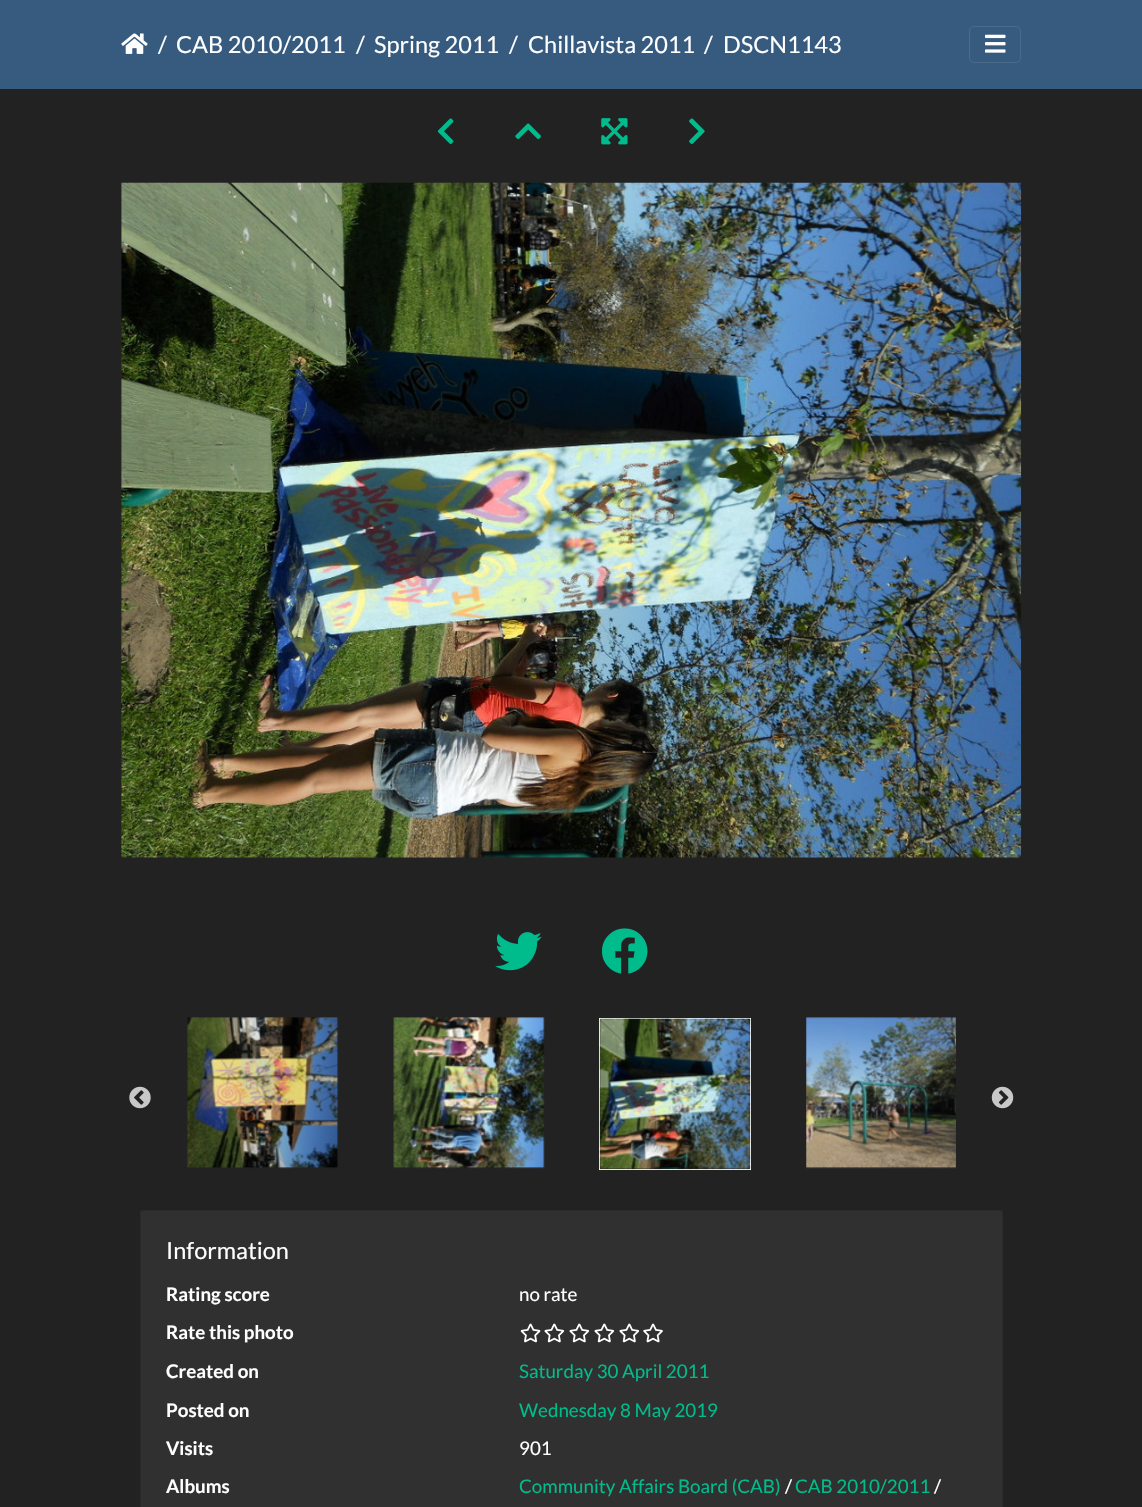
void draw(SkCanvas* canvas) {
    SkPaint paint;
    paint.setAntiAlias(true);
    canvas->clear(0xFF222222);
    paint.setColor(0xFF375A7F);
    canvas->drawRect(SkRect::MakeXYWH(0, 0, 1142, 89), paint);
    canvas->drawImageRect(SkImages::DeferredFromEncodedData(SkData::MakeFromFileName("img1.png")), SkRect::MakeXYWH(121, 33, 27, 21), SkSamplingOptions());
    SkFont font1(fontMgr->matchFamilyStyle("Lato", SkFontStyle::Normal()), 23.5f);
    font1.setSubpixel(true);
    paint.setColor(0xFFFFFFFF);
    canvas->drawString("/", 158, 53, font1, paint);
    canvas->drawString("CAB 2010/2011", 176, 53, font1, paint);
    canvas->drawString("/", 356, 53, font1, paint);
    canvas->drawString("Spring 2011", 374, 53, font1, paint);
    canvas->drawString("/", 509, 53, font1, paint);
    canvas->drawString("Chillavista 2011", 528, 53, font1, paint);
    canvas->drawString("/", 704, 53, font1, paint);
    canvas->drawString("DSCN1143", 723, 53, font1, paint);
    paint.setStyle(SkPaint::kStroke_Style);
    paint.setStrokeWidth(1);
    paint.setColor(0xFF4B6B8C);
    canvas->drawRoundRect(SkRect::MakeXYWH(969.5f, 26.5f, 51, 36), 4.5f, 4.5f, paint);
    canvas->drawImageRect(SkImages::DeferredFromEncodedData(SkData::MakeFromFileName("img2.png")), SkRect::MakeXYWH(985, 34, 21, 19), SkSamplingOptions());
    canvas->drawImageRect(SkImages::DeferredFromEncodedData(SkData::MakeFromFileName("img3.png")), SkRect::MakeXYWH(437, 118, 17, 26), SkSamplingOptions());
    canvas->drawImageRect(SkImages::DeferredFromEncodedData(SkData::MakeFromFileName("img4.png")), SkRect::MakeXYWH(515, 123, 26, 16), SkSamplingOptions());
    canvas->drawImageRect(SkImages::DeferredFromEncodedData(SkData::MakeFromFileName("img5.png")), SkRect::MakeXYWH(601, 118, 27, 27), SkSamplingOptions());
    canvas->drawImageRect(SkImages::DeferredFromEncodedData(SkData::MakeFromFileName("img6.png")), SkRect::MakeXYWH(689, 118, 16, 26), SkSamplingOptions());
    canvas->drawImageRect(SkImages::DeferredFromEncodedData(SkData::MakeFromFileName("img7.png")), SkRect::MakeXYWH(121, 182, 901, 676), SkSamplingOptions());
    canvas->drawImageRect(SkImages::DeferredFromEncodedData(SkData::MakeFromFileName("img8.png")), SkRect::MakeXYWH(495, 932, 47, 39), SkSamplingOptions());
    canvas->drawImageRect(SkImages::DeferredFromEncodedData(SkData::MakeFromFileName("img9.png")), SkRect::MakeXYWH(602, 928, 46, 46), SkSamplingOptions());
    canvas->drawImageRect(SkImages::DeferredFromEncodedData(SkData::MakeFromFileName("img10.png")), SkRect::MakeXYWH(129, 1086, 22, 23), SkSamplingOptions());
    canvas->drawImageRect(SkImages::DeferredFromEncodedData(SkData::MakeFromFileName("img11.png")), SkRect::MakeXYWH(187, 1017, 152, 152), SkSamplingOptions());
    canvas->drawImageRect(SkImages::DeferredFromEncodedData(SkData::MakeFromFileName("img12.png")), SkRect::MakeXYWH(393, 1017, 152, 152), SkSamplingOptions());
    paint.setColor(0xFFFFFFFF);
    canvas->drawRect(SkRect::MakeXYWH(599.5f, 1018.5f, 151, 151), paint);
    canvas->drawImageRect(SkImages::DeferredFromEncodedData(SkData::MakeFromFileName("img13.png")), SkRect::MakeXYWH(599, 1018, 152, 152), SkSamplingOptions());
    canvas->drawImageRect(SkImages::DeferredFromEncodedData(SkData::MakeFromFileName("img14.png")), SkRect::MakeXYWH(806, 1017, 150, 152), SkSamplingOptions());
    canvas->drawImageRect(SkImages::DeferredFromEncodedData(SkData::MakeFromFileName("img15.png")), SkRect::MakeXYWH(991, 1086, 23, 23), SkSamplingOptions());
    paint.setStyle(SkPaint::kFill_Style);
    paint.setColor(0xFF303030);
    canvas->drawRoundRect(SkRect::MakeXYWH(140, 1210, 863, 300), 2.5f, 2.5f, paint);
    paint.setStyle(SkPaint::kStroke_Style);
    paint.setColor(0x1F000000);
    canvas->drawRoundRect(SkRect::MakeXYWH(140.5f, 1210.5f, 862, 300), 2, 2, paint);
    paint.setStyle(SkPaint::kFill_Style);
    paint.setColor(0xFFFFFFFF);
    canvas->drawString("Information", 166, 1259, font1, paint);
    SkFont font2(fontMgr->matchFamilyStyle("Lato", SkFontStyle::Bold()), 18.75f);
    font2.setSubpixel(true);
    canvas->drawString("Rating score", 166, 1301, font2, paint);
    SkFont font3(fontMgr->matchFamilyStyle("Lato", SkFontStyle::Normal()), 18.75f);
    font3.setSubpixel(true);
    canvas->drawString("no rate", 519, 1301, font3, paint);
    canvas->drawString("Rate this photo", 166, 1339, font2, paint);
    canvas->drawImageRect(SkImages::DeferredFromEncodedData(SkData::MakeFromFileName("img16.png")), SkRect::MakeXYWH(520, 1323, 21, 20), SkSamplingOptions());
    canvas->drawImageRect(SkImages::DeferredFromEncodedData(SkData::MakeFromFileName("img17.png")), SkRect::MakeXYWH(544, 1323, 21, 20), SkSamplingOptions());
    canvas->drawImageRect(SkImages::DeferredFromEncodedData(SkData::MakeFromFileName("img17.png")), SkRect::MakeXYWH(569, 1323, 21, 20), SkSamplingOptions());
    canvas->drawImageRect(SkImages::DeferredFromEncodedData(SkData::MakeFromFileName("img17.png")), SkRect::MakeXYWH(594, 1323, 21, 20), SkSamplingOptions());
    canvas->drawImageRect(SkImages::DeferredFromEncodedData(SkData::MakeFromFileName("img17.png")), SkRect::MakeXYWH(619, 1323, 21, 20), SkSamplingOptions());
    canvas->drawImageRect(SkImages::DeferredFromEncodedData(SkData::MakeFromFileName("img18.png")), SkRect::MakeXYWH(643, 1323, 20, 20), SkSamplingOptions());
    canvas->drawString("Created on", 166, 1378, font2, paint);
    paint.setColor(0xFF00BC8C);
    canvas->drawString("Saturday 30 April 2011", 519, 1378, font3, paint);
    paint.setColor(0xFFFFFFFF);
    canvas->drawString("Posted on", 166, 1417, font2, paint);
    paint.setColor(0xFF00BC8C);
    canvas->drawString("Wednesday 8 May 2019", 519, 1417, font3, paint);
    paint.setColor(0xFFFFFFFF);
    canvas->drawString("Visits", 166, 1455, font2, paint);
    canvas->drawString("901", 519, 1455, font3, paint);
    canvas->drawString("Albums", 166, 1493, font2, paint);
    paint.setColor(0xFF00BC8C);
    canvas->drawString("Community Affairs Board (CAB)", 519, 1493, font3, paint);
    paint.setColor(0xFFFFFFFF);
    canvas->drawString("/", 785, 1493, font3, paint);
    paint.setColor(0xFF00BC8C);
    canvas->drawString("CAB 2010/2011", 795, 1493, font3, paint);
    paint.setColor(0xFFFFFFFF);
    canvas->drawString("/", 934, 1493, font3, paint);
}
